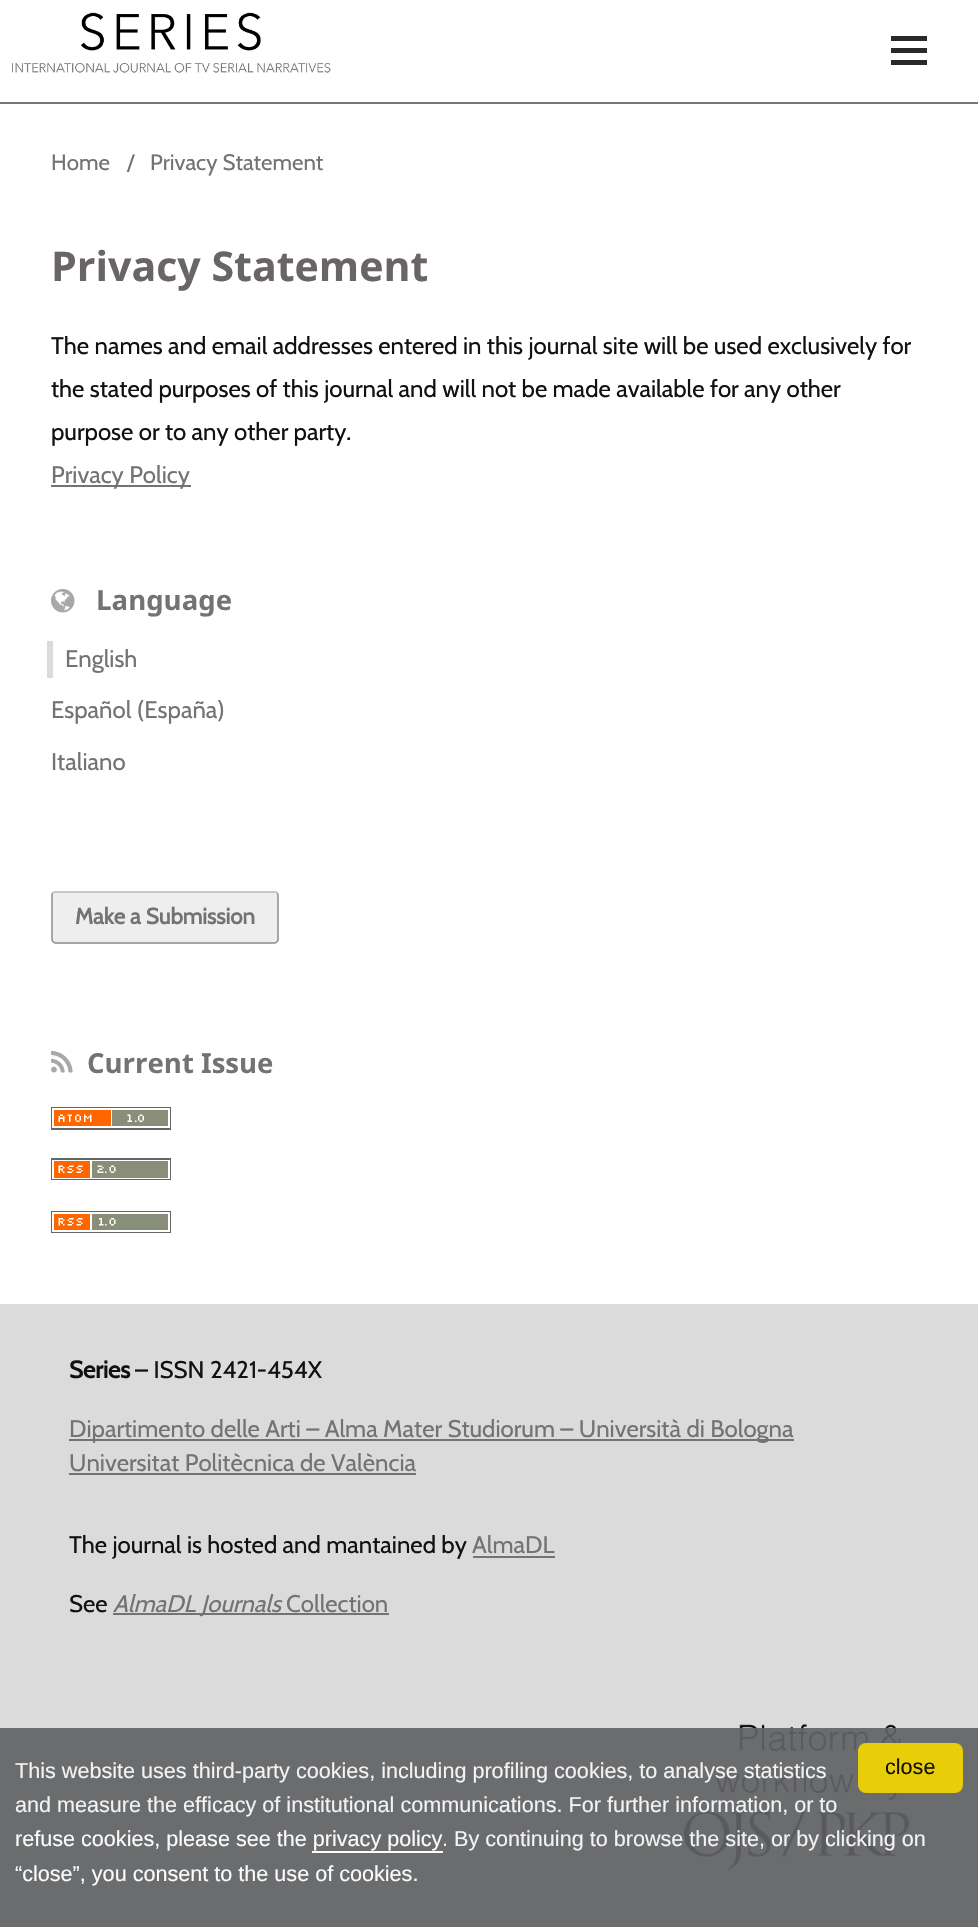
void draw(SkCanvas* canvas) {
    SkPaint paint;
    paint.setAntiAlias(true);
    canvas->clear(0xFFFFFFFF);
    paint.setColor(0xFF777777);
    canvas->drawRect(SkRect::MakeXYWH(0, 102, 978, 2), paint);
    canvas->drawImageRect(SkImages::DeferredFromEncodedData(SkData::MakeFromFileName("img1.png")), SkRect::MakeXYWH(12, 12, 319, 61), SkSamplingOptions());
    paint.setColor(0xFF292929);
    canvas->drawRect(SkRect::MakeXYWH(891, 60, 36, 5), paint);
    canvas->drawRect(SkRect::MakeXYWH(891, 36, 36, 5), paint);
    canvas->drawRect(SkRect::MakeXYWH(891, 48, 36, 5), paint);
    SkFont font1(fontMgr->matchFamilyStyle("Cabin", SkFontStyle::Normal()), 22.25f);
    font1.setSubpixel(true);
    paint.setColor(0xFF737373);
    canvas->drawString("Home", 51, 170, font1, paint);
    canvas->drawString("/", 127, 170, font1, paint);
    canvas->drawString("Privacy Statement", 150, 170, font1, paint);
    SkFont font2(fontMgr->matchFamilyStyle("Noto Sans", SkFontStyle::Bold()), 41.1f);
    font2.setSubpixel(true);
    paint.setColor(0xFF6A6565);
    canvas->drawString("Privacy Statement", 51, 281, font2, paint);
    SkFont font3(fontMgr->matchFamilyStyle("Cabin", SkFontStyle::Normal()), 24);
    font3.setSubpixel(true);
    paint.setColor(0xFF111111);
    canvas->drawString("The names and email addresses entered in this journal site will be used exclusively for", 51, 354, font3, paint);
    canvas->drawString("the stated purposes of this journal and will not be made available for any other", 51, 397, font3, paint);
    canvas->drawString("purpose or to any other party.", 51, 440, font3, paint);
    paint.setColor(0xFF737373);
    canvas->drawRect(SkRect::MakeXYWH(51, 485, 140, 2), paint);
    canvas->drawString("Privacy Policy", 51, 483, font3, paint);
    canvas->drawImageRect(SkImages::DeferredFromEncodedData(SkData::MakeFromFileName("img2.png")), SkRect::MakeXYWH(51, 589, 24, 24), SkSamplingOptions());
    SkFont font4(fontMgr->matchFamilyStyle("Noto Sans", SkFontStyle::Bold()), 27.5f);
    font4.setSubpixel(true);
    canvas->drawString("Language", 96, 610, font4, paint);
    canvas->drawString("English", 65, 667, font3, paint);
    paint.setColor(0xFFDBDBDB);
    canvas->drawRect(SkRect::MakeXYWH(47, 641, 6, 37), paint);
    paint.setColor(0xFF737373);
    canvas->drawString("Español (España)", 51, 718, font3, paint);
    canvas->drawString("Italiano", 51, 770, font3, paint);
    paint.setColor(0xFFEEEEEE);
    canvas->drawRoundRect(SkRect::MakeXYWH(51, 891, 228, 53), 5, 5, paint);
    paint.setStyle(SkPaint::kStroke_Style);
    paint.setStrokeWidth(1.5f);
    paint.setColor(0xFFBBBBBB);
    canvas->drawPath(SkPathBuilder().moveTo(53, 893).cubicTo(53.5f, 892, 54.5f, 892, 55.5f, 892).lineTo(274.5f, 892).cubicTo(275.5f, 892, 276.5f, 892, 277, 893).detach(), paint);
    paint.setColor(0x66000000);
    canvas->drawPath(SkPathBuilder().moveTo(277, 893).cubicTo(278, 893.5f, 278, 894.5f, 278, 895.5f).lineTo(278, 939).cubicTo(278, 940, 278, 941, 277, 941.5f).cubicTo(276.5f, 942.5f, 275.5f, 943, 274.5f, 943).lineTo(55.5f, 943).cubicTo(54.5f, 943, 53.5f, 942.5f, 53, 941.5f).cubicTo(52, 941, 52, 940, 52, 939).lineTo(52, 895.5f).cubicTo(52, 894.5f, 52, 893.5f, 53, 893).detach(), paint);
    SkFont font5(fontMgr->matchFamilyStyle("Cabin", SkFontStyle::Bold()), 22.25f);
    font5.setSubpixel(true);
    paint.setStyle(SkPaint::kFill_Style);
    paint.setColor(0xFF737373);
    canvas->drawString("Make a Submission", 75, 924, font5, paint);
    canvas->drawImageRect(SkImages::DeferredFromEncodedData(SkData::MakeFromFileName("img3.png")), SkRect::MakeXYWH(51, 1051, 22, 22), SkSamplingOptions());
    canvas->drawString("Current Issue", 87, 1073, font4, paint);
    canvas->drawImageRect(SkImages::DeferredFromEncodedData(SkData::MakeFromFileName("img4.png")), SkRect::MakeXYWH(51, 1107, 120, 23), SkSamplingOptions());
    canvas->drawImageRect(SkImages::DeferredFromEncodedData(SkData::MakeFromFileName("img5.png")), SkRect::MakeXYWH(51, 1158, 120, 22), SkSamplingOptions());
    canvas->drawImageRect(SkImages::DeferredFromEncodedData(SkData::MakeFromFileName("img6.png")), SkRect::MakeXYWH(51, 1211, 120, 22), SkSamplingOptions());
    paint.setColor(0xFFDBDBDB);
    canvas->drawRect(SkRect::MakeXYWH(0, 1304, 978, 424), paint);
    paint.setColor(0xFF6B6C6E);
    canvas->drawRect(SkRect::MakeXYWH(0, 1728, 978, 199), paint);
    SkFont font6(fontMgr->matchFamilyStyle("Cabin", SkFontStyle::Bold()), 24);
    font6.setSubpixel(true);
    paint.setColor(0xFF111111);
    canvas->drawString("Series", 69, 1378, font6, paint);
    canvas->drawString("– ISSN 2421-454X", 135, 1378, font3, paint);
    paint.setColor(0xFF737373);
    canvas->drawRect(SkRect::MakeXYWH(69, 1439, 725, 2), paint);
    canvas->drawString("Dipartimento delle Arti – Alma Mater Studiorum – Università di Bologna", 69, 1437, font3, paint);
    canvas->drawString("Universitat Politècnica de València", 69, 1471, font3, paint);
    canvas->drawRect(SkRect::MakeXYWH(69, 1473, 347, 2), paint);
    paint.setColor(0xFF111111);
    canvas->drawString("The journal is hosted and mantained by", 69, 1553, font3, paint);
    paint.setColor(0xFF737373);
    canvas->drawString("AlmaDL", 472, 1553, font3, paint);
    canvas->drawRect(SkRect::MakeXYWH(473, 1556, 82, 2), paint);
    paint.setColor(0xFF111111);
    canvas->drawString("See", 69, 1612, font3, paint);
    paint.setColor(0xFF737373);
    canvas->drawRect(SkRect::MakeXYWH(113, 1613, 168, 2), paint);
    SkFont font7(fontMgr->matchFamilyStyle("Cabin", SkFontStyle::Italic()), 24);
    font7.setSubpixel(true);
    canvas->drawString("AlmaDL Journals", 113, 1612, font7, paint);
    canvas->drawRect(SkRect::MakeXYWH(281, 1613, 108, 2), paint);
    canvas->drawString("Collection", 286, 1612, font3, paint);
    canvas->drawImageRect(SkImages::DeferredFromEncodedData(SkData::MakeFromFileName("img7.png")), SkRect::MakeXYWH(684, 1724, 225, 146), SkSamplingOptions());
    paint.setColor(0xEBF1D600);
    canvas->drawRoundRect(SkRect::MakeXYWH(858, 1743, 105, 50), 8, 8, paint);
    SkFont font8(fontMgr->matchFamilyStyle("Liberation Sans", SkFontStyle::Normal()), 21.6f);
    font8.setSubpixel(true);
    paint.setColor(0xFF121001);
    canvas->drawString("close", 885, 1774, font8, paint);
    paint.setColor(0xFFF3F3F3);
    canvas->drawString("This website uses third-party cookies, including profiling cookies, to analyse statistics", 15, 1778, font8, paint);
    canvas->drawString("and measure the efficacy of institutional communications. For further information, or to", 15, 1812, font8, paint);
    paint.setColor(0xFFFCFCFC);
    canvas->drawString("refuse cookies, please see the privacy policy", 15, 1846, font8, paint);
    paint.setColor(0xFFF3F3F3);
    canvas->drawString(". By continuing to browse the site, or by clicking on", 442, 1846, font8, paint);
    paint.setColor(0xFFFCFCFC);
    canvas->drawRect(SkRect::MakeXYWH(312, 1851, 131, 2), paint);
    canvas->drawString("“close”, you consent to the use of cookies.", 15, 1881, font8, paint);
}
